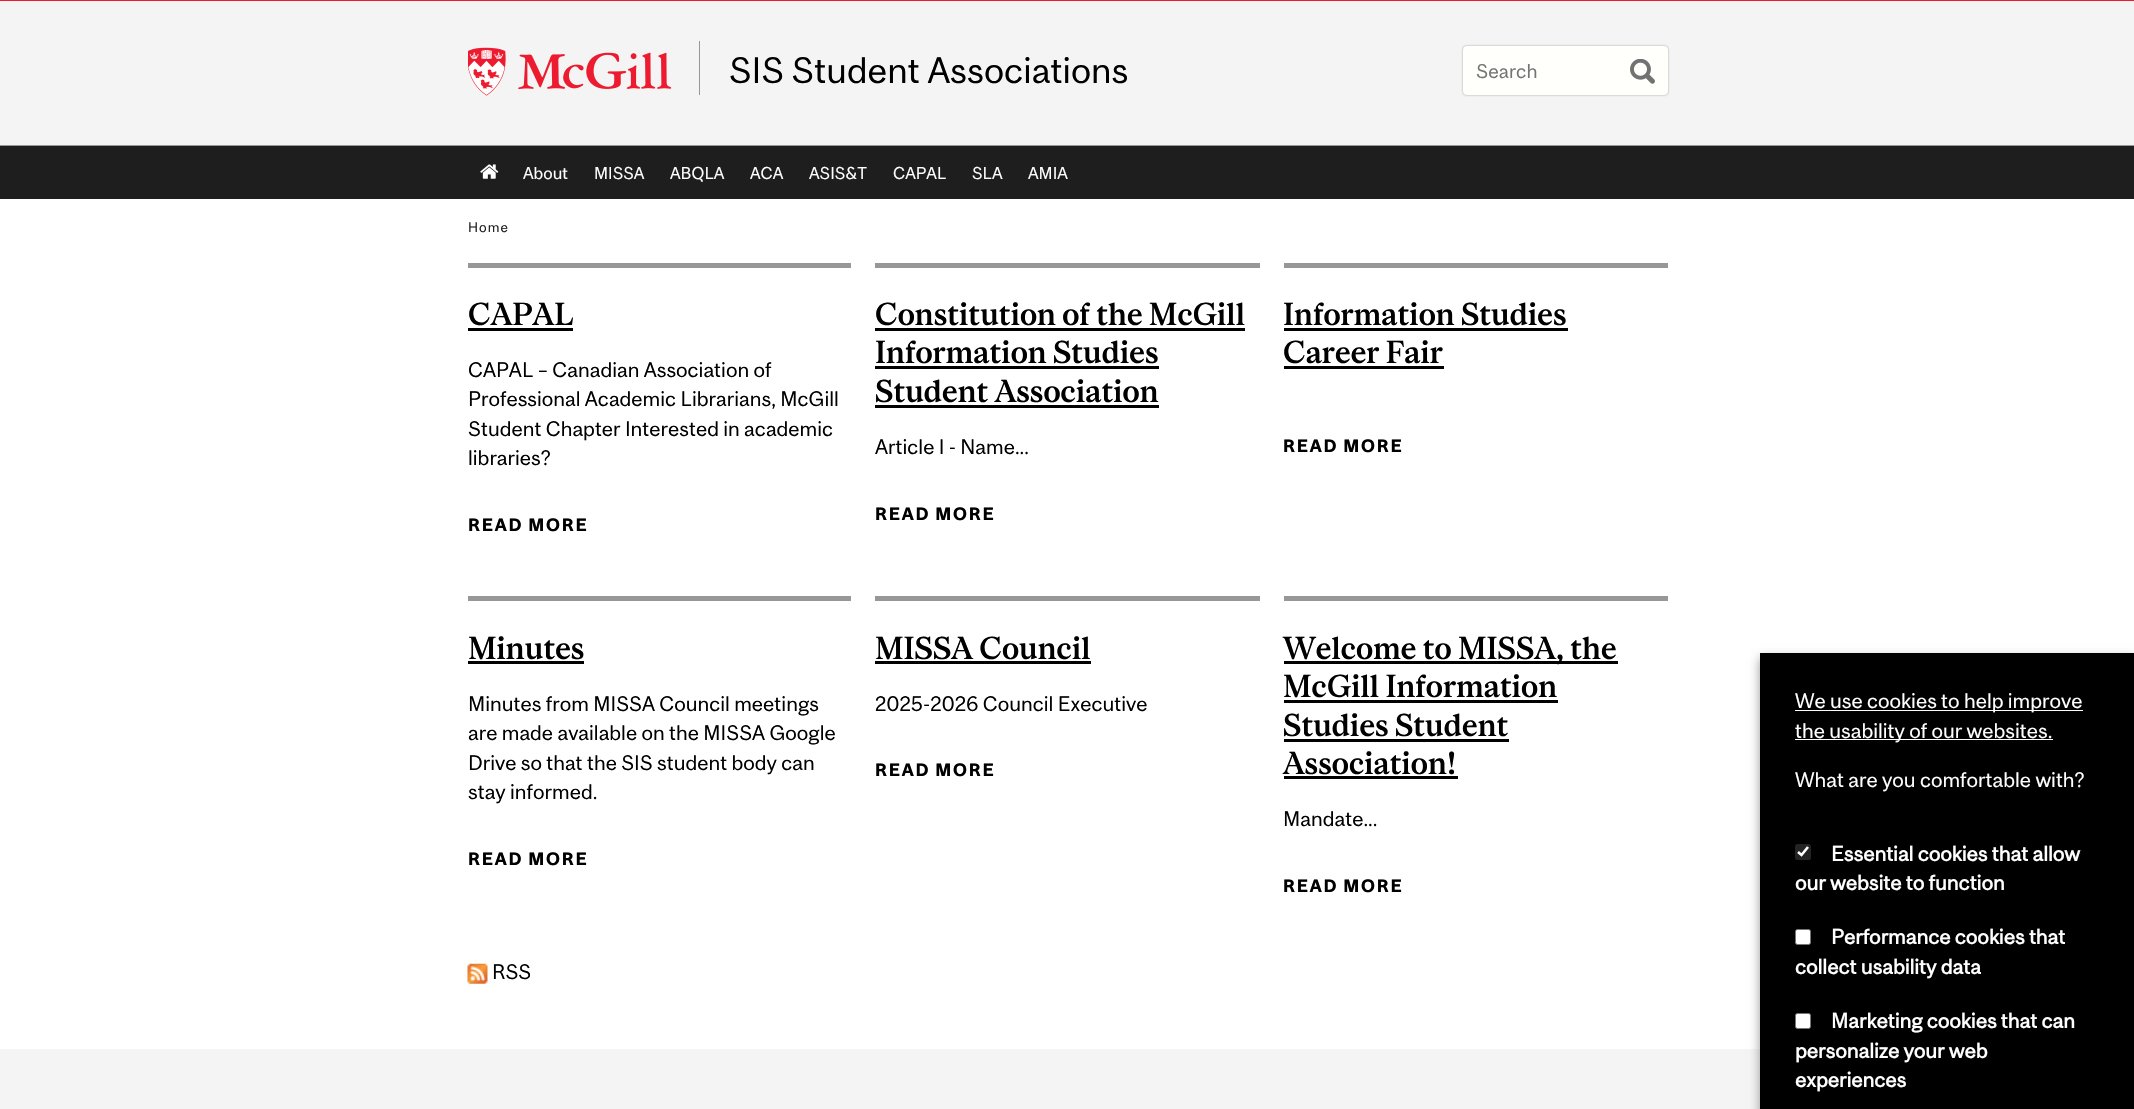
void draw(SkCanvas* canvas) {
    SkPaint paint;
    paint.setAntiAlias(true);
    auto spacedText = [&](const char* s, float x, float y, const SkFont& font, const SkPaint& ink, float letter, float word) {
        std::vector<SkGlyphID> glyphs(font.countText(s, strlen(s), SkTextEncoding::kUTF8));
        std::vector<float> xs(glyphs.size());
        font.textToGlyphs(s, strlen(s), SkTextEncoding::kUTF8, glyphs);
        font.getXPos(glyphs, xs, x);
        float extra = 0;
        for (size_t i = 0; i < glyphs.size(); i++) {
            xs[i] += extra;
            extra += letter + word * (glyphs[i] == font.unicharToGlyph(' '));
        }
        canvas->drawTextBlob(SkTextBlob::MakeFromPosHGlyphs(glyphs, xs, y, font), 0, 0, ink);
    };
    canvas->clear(0xFFFFFFFF);
    paint.setColor(0xFFF4F4F4);
    canvas->drawRect(SkRect::MakeXYWH(0, 1, 2134, 144), paint);
    paint.setColor(0xFFED1B2F);
    canvas->drawRect(SkRect::MakeXYWH(0, 0, 2134, 1), paint);
    paint.setColor(0xFF979797);
    canvas->drawRect(SkRect::MakeXYWH(0, 145, 2134, 1), paint);
    canvas->drawImageRect(SkImages::DeferredFromEncodedData(SkData::MakeFromFileName("img1.png")), SkRect::MakeXYWH(468, 47, 204, 49), SkSamplingOptions());
    canvas->drawRect(SkRect::MakeXYWH(699, 41, 1, 54), paint);
    SkFont font1(fontMgr->matchFamilyStyle("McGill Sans", SkFontStyle::Normal()), 34.25f);
    font1.setSubpixel(true);
    paint.setColor(0xFF000000);
    canvas->drawString("SIS Student Associations", 729, 83, font1, paint);
    paint.setColor(0x66000000);
    paint.setMaskFilter(SkMaskFilter::MakeBlur(kNormal_SkBlurStyle, 1));
    canvas->drawRoundRect(SkRect::MakeXYWH(1463, 46, 205, 49), 4, 4, paint);
    paint.setMaskFilter(nullptr);
    paint.setColor(0xFFFFFFFC);
    canvas->drawRoundRect(SkRect::MakeXYWH(1463, 46, 205, 49), 4, 4, paint);
    SkFont font2(fontMgr->matchFamilyStyle("McGill Sans", SkFontStyle::Normal()), 18.5f);
    font2.setSubpixel(true);
    paint.setColor(0xFF757575);
    canvas->drawString("Search", 1476, 78, font2, paint);
    canvas->drawImageRect(SkImages::DeferredFromEncodedData(SkData::MakeFromFileName("img2.png")), SkRect::MakeXYWH(1630, 59, 25, 25), SkSamplingOptions());
    paint.setColor(0xFF1E1E1E);
    canvas->drawRect(SkRect::MakeXYWH(0, 146, 2134, 53), paint);
    canvas->drawImageRect(SkImages::DeferredFromEncodedData(SkData::MakeFromFileName("img3.png")), SkRect::MakeXYWH(480, 164, 19, 15), SkSamplingOptions());
    SkFont font3(fontMgr->matchFamilyStyle("McGill Sans", SkFontStyle::Normal()), 16);
    font3.setSubpixel(true);
    paint.setColor(0xFFFFFFFF);
    canvas->drawString("About", 523, 179, font3, paint);
    canvas->drawString("MISSA", 594, 179, font3, paint);
    canvas->drawString("ABQLA", 670, 179, font3, paint);
    canvas->drawString("ACA", 750, 179, font3, paint);
    canvas->drawString("ASIS&T", 809, 179, font3, paint);
    canvas->drawString("CAPAL", 893, 179, font3, paint);
    canvas->drawString("SLA", 972, 179, font3, paint);
    canvas->drawString("AMIA", 1028, 179, font3, paint);
    SkFont font4(fontMgr->matchFamilyStyle("McGill Sans", SkFontStyle::Normal()), 13);
    font4.setSubpixel(true);
    paint.setColor(0xFF1E1E1E);
    spacedText("Home", 468, 232, font4, paint, 1, 0);
    paint.setColor(0xFF979797);
    canvas->drawRect(SkRect::MakeXYWH(468, 263, 383, 5), paint);
    SkFont font5(fontMgr->matchFamilyStyle("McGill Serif", SkFontStyle(500, SkFontStyle::kNormal_Width, SkFontStyle::kUpright_Slant)), 29.6f);
    font5.setSubpixel(true);
    paint.setColor(0xFF000000);
    canvas->drawString("CAPAL", 468, 325, font5, paint);
    canvas->drawRect(SkRect::MakeXYWH(468, 328, 105, 3), paint);
    SkFont font6(fontMgr->matchFamilyStyle("McGill Sans", SkFontStyle::Normal()), 19.6f);
    font6.setSubpixel(true);
    canvas->drawString("CAPAL – Canadian Association of", 468, 377, font6, paint);
    canvas->drawString("Professional Academic Librarians, McGill", 468, 406, font6, paint);
    canvas->drawString("Student Chapter Interested in academic", 468, 436, font6, paint);
    canvas->drawString("libraries?", 468, 465, font6, paint);
    SkFont font7(fontMgr->matchFamilyStyle("McGill Sans", SkFontStyle::Bold()), 16.75f);
    font7.setSubpixel(true);
    spacedText("READ MORE", 468, 531, font7, paint, 1.75f, 0);
    paint.setColor(0xFF979797);
    canvas->drawRect(SkRect::MakeXYWH(875, 263, 385, 5), paint);
    paint.setColor(0xFF000000);
    canvas->drawString("Constitution of the McGill", 875, 325, font5, paint);
    canvas->drawRect(SkRect::MakeXYWH(875, 328, 370, 3), paint);
    canvas->drawString("Information Studies", 875, 363, font5, paint);
    canvas->drawRect(SkRect::MakeXYWH(875, 366, 284, 3), paint);
    canvas->drawString("Student Association", 875, 402, font5, paint);
    canvas->drawRect(SkRect::MakeXYWH(875, 405, 284, 3), paint);
    canvas->drawString("Article I - Name...", 875, 454, font6, paint);
    spacedText("READ MORE", 875, 520, font7, paint, 1.75f, 0);
    paint.setColor(0xFF979797);
    canvas->drawRect(SkRect::MakeXYWH(1284, 263, 384, 5), paint);
    paint.setColor(0xFF000000);
    canvas->drawString("Information Studies", 1283, 325, font5, paint);
    canvas->drawRect(SkRect::MakeXYWH(1284, 328, 284, 3), paint);
    canvas->drawString("Career Fair", 1283, 363, font5, paint);
    canvas->drawRect(SkRect::MakeXYWH(1284, 366, 160, 3), paint);
    spacedText("READ MORE", 1283, 452, font7, paint, 1.75f, 0);
    paint.setColor(0xFF979797);
    canvas->drawRect(SkRect::MakeXYWH(468, 596, 383, 5), paint);
    paint.setColor(0xFF000000);
    canvas->drawString("Minutes", 468, 659, font5, paint);
    canvas->drawRect(SkRect::MakeXYWH(468, 661, 116, 3), paint);
    canvas->drawString("Minutes from MISSA Council meetings", 468, 711, font6, paint);
    canvas->drawString("are made available on the MISSA Google", 468, 740, font6, paint);
    canvas->drawString("Drive so that the SIS student body can", 468, 770, font6, paint);
    canvas->drawString("stay informed.", 468, 799, font6, paint);
    spacedText("READ MORE", 468, 865, font7, paint, 1.75f, 0);
    paint.setColor(0xFF979797);
    canvas->drawRect(SkRect::MakeXYWH(875, 596, 385, 5), paint);
    paint.setColor(0xFF000000);
    canvas->drawString("MISSA Council", 875, 659, font5, paint);
    canvas->drawRect(SkRect::MakeXYWH(875, 661, 216, 3), paint);
    canvas->drawString("2025-2026 Council Executive", 875, 711, font6, paint);
    spacedText("READ MORE", 875, 776, font7, paint, 1.75f, 0);
    paint.setColor(0xFF979797);
    canvas->drawRect(SkRect::MakeXYWH(1284, 596, 384, 5), paint);
    paint.setColor(0xFF000000);
    canvas->drawRect(SkRect::MakeXYWH(1284, 661, 334, 3), paint);
    canvas->drawString("Welcome to MISSA, the", 1283, 659, font5, paint);
    canvas->drawString("McGill Information", 1283, 697, font5, paint);
    canvas->drawRect(SkRect::MakeXYWH(1284, 700, 274, 3), paint);
    canvas->drawString("Studies Student", 1283, 736, font5, paint);
    canvas->drawRect(SkRect::MakeXYWH(1284, 739, 225, 3), paint);
    canvas->drawString("Association!", 1283, 774, font5, paint);
    canvas->drawRect(SkRect::MakeXYWH(1284, 776, 174, 3), paint);
    canvas->drawString("Mandate...", 1283, 826, font6, paint);
    spacedText("READ MORE", 1283, 892, font7, paint, 1.75f, 0);
    canvas->drawImageRect(SkImages::DeferredFromEncodedData(SkData::MakeFromFileName("img4.png")), SkRect::MakeXYWH(467, 963, 21, 21), SkSamplingOptions());
    canvas->drawString("RSS", 492, 979, font6, paint);
    paint.setColor(0xFFF4F4F4);
    canvas->drawRect(SkRect::MakeXYWH(0, 1049, 1760, 60), paint);
    paint.setColor(0xFF979799);
    paint.setMaskFilter(SkMaskFilter::MakeBlur(kNormal_SkBlurStyle, 5));
    canvas->drawRect(SkRect::MakeXYWH(1760, 658, 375, 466), paint);
    paint.setMaskFilter(nullptr);
    paint.setColor(0xFF000000);
    canvas->drawRect(SkRect::MakeXYWH(1760, 653, 374, 456), paint);
    paint.setColor(0xFFFFFFFF);
    canvas->drawRect(SkRect::MakeXYWH(1795, 710, 288, 1), paint);
    canvas->drawString("We use cookies to help improve", 1795, 708, font6, paint);
    canvas->drawRect(SkRect::MakeXYWH(1795, 739, 258, 1), paint);
    canvas->drawString("the usability of our websites.", 1795, 738, font6, paint);
    canvas->drawString("What are you comfortable with?", 1795, 787, font6, paint);
    paint.setColor(0xFF232323);
    canvas->drawRoundRect(SkRect::MakeXYWH(1795, 844, 16, 16), 2.5f, 2.5f, paint);
    paint.setStyle(SkPaint::kStroke_Style);
    paint.setStrokeWidth(2.6f);
    paint.setColor(0xFFFFFFFF);
    canvas->drawPath(SkPathBuilder().moveTo(1798, 852).lineTo(1801.5f, 855).lineTo(1808, 847).detach(), paint);
    SkFont font8(fontMgr->matchFamilyStyle("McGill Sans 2", SkFontStyle::Bold()), 19.6f);
    font8.setSubpixel(true);
    paint.setStyle(SkPaint::kFill_Style);
    canvas->drawString("Essential cookies that allow", 1831, 861, font8, paint);
    canvas->drawString("our website to function", 1795, 890, font8, paint);
    canvas->drawRoundRect(SkRect::MakeXYWH(1795.5f, 929.5f, 15, 15), 2, 2, paint);
    paint.setStyle(SkPaint::kStroke_Style);
    paint.setStrokeWidth(1);
    paint.setColor(0xFF767676);
    canvas->drawRoundRect(SkRect::MakeXYWH(1795.5f, 929.5f, 15, 15), 2, 2, paint);
    paint.setStyle(SkPaint::kFill_Style);
    paint.setColor(0xFFFFFFFF);
    canvas->drawString("Performance cookies that", 1831, 944, font8, paint);
    canvas->drawString("collect usability data", 1795, 974, font8, paint);
    canvas->drawRoundRect(SkRect::MakeXYWH(1795.5f, 1013.5f, 15, 15), 2, 2, paint);
    paint.setStyle(SkPaint::kStroke_Style);
    paint.setColor(0xFF767676);
    canvas->drawRoundRect(SkRect::MakeXYWH(1795.5f, 1013.5f, 15, 15), 2, 2, paint);
    paint.setStyle(SkPaint::kFill_Style);
    paint.setColor(0xFFFFFFFF);
    canvas->drawString("Marketing cookies that can", 1831, 1028, font8, paint);
    canvas->drawString("personalize your web", 1795, 1058, font8, paint);
    canvas->drawString("experiences", 1795, 1087, font8, paint);
}
